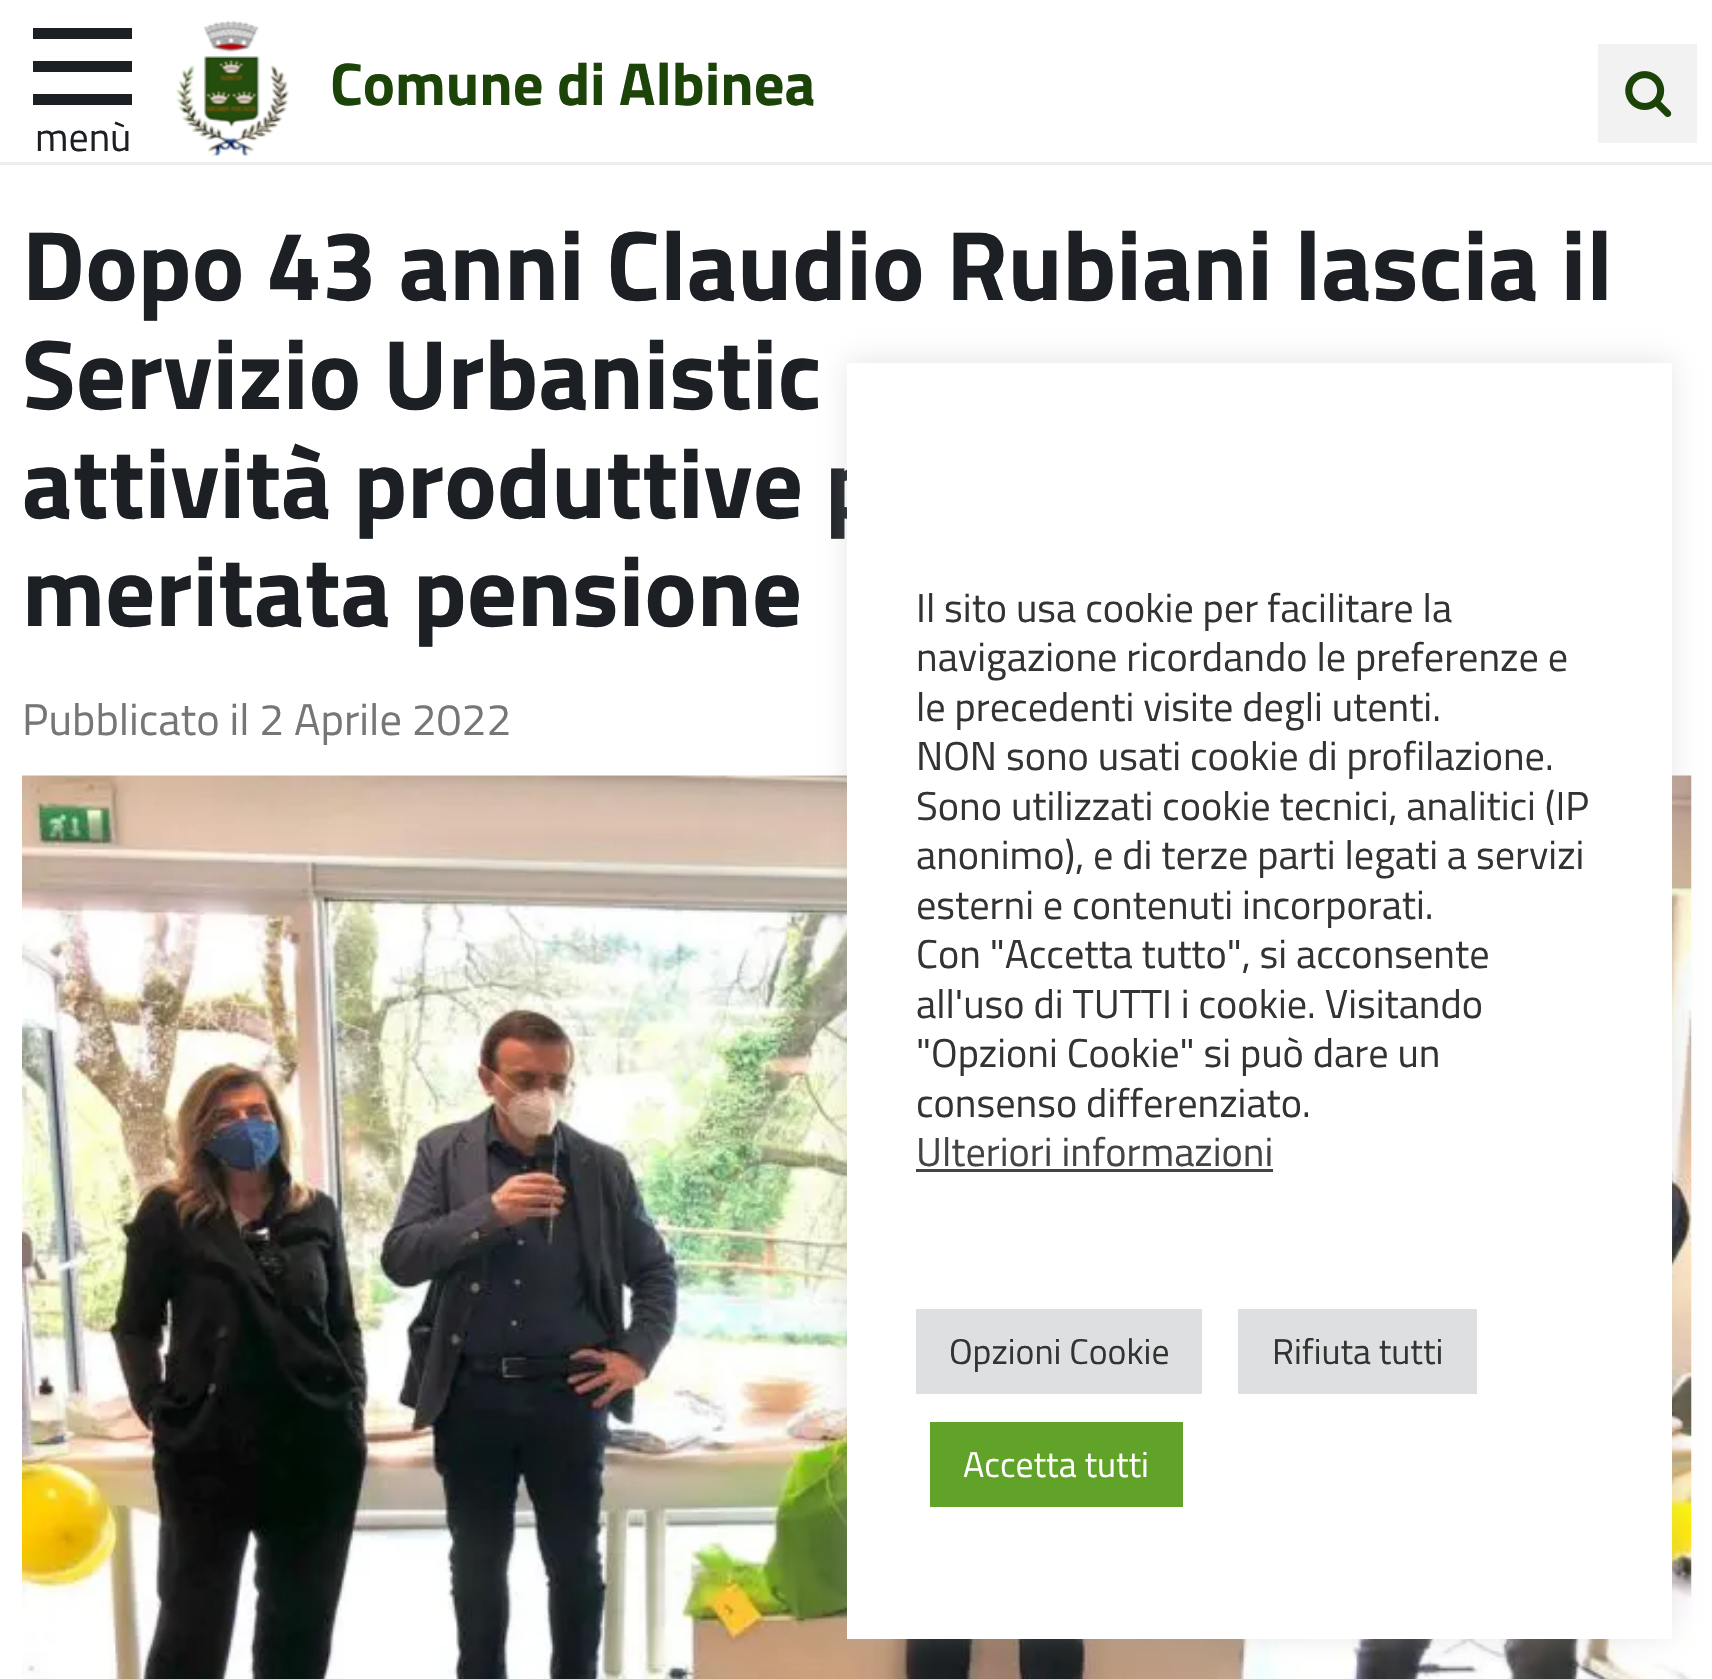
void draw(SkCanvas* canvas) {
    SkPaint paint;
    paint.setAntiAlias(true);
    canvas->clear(0xFFFFFFFF);
    paint.setColor(0xFFEEEEEE);
    canvas->drawRect(SkRect::MakeXYWH(0, 162, 1712, 3), paint);
    canvas->drawImageRect(SkImages::DeferredFromEncodedData(SkData::MakeFromFileName("img1.png")), SkRect::MakeXYWH(176, 20, 113, 137), SkSamplingOptions());
    SkFont font1(fontMgr->matchFamilyStyle("Titillium Web", SkFontStyle::Bold()), 60.5f);
    font1.setSubpixel(true);
    paint.setColor(0xFF1C4409);
    canvas->drawString("Comune di Albinea", 330, 105, font1, paint);
    paint.setColor(0xFF1C2024);
    canvas->drawRect(SkRect::MakeXYWH(33, 61, 99, 11), paint);
    canvas->drawRect(SkRect::MakeXYWH(33, 28, 99, 11), paint);
    canvas->drawRect(SkRect::MakeXYWH(33, 94, 99, 11), paint);
    SkFont font2(fontMgr->matchFamilyStyle("Titillium Web", SkFontStyle::Normal()), 40);
    font2.setSubpixel(true);
    canvas->drawString("menù", 35, 151, font2, paint);
    paint.setColor(0xFFF2F2F2);
    canvas->drawRect(SkRect::MakeXYWH(1598, 44, 99, 99), paint);
    canvas->drawImageRect(SkImages::DeferredFromEncodedData(SkData::MakeFromFileName("img2.png")), SkRect::MakeXYWH(1625, 71, 47, 47), SkSamplingOptions());
    SkFont font3(fontMgr->matchFamilyStyle("Titillium Web", SkFontStyle::Bold()), 99);
    font3.setSubpixel(true);
    paint.setColor(0xFF1C2024);
    canvas->drawString("Dopo 43 anni Claudio Rubiani lascia il", 22, 300, font3, paint);
    canvas->drawString("Servizio Urbanistic", 22, 409, font3, paint);
    canvas->drawString("attività produttive p", 22, 518, font3, paint);
    canvas->drawString("meritata pensione", 22, 626, font3, paint);
    SkFont font4(fontMgr->matchFamilyStyle("Titillium Web", SkFontStyle::Normal()), 44.5f);
    font4.setSubpixel(true);
    paint.setColor(0xFF767676);
    canvas->drawString("Pubblicato il 2 Aprile 2022", 22, 735, font4, paint);
    canvas->drawImageRect(SkImages::DeferredFromEncodedData(SkData::MakeFromFileName("img3.png")), SkRect::MakeXYWH(22, 775, 1670, 904), SkSamplingOptions());
    paint.setColor(0x4DACABAB);
    paint.setMaskFilter(SkMaskFilter::MakeBlur(kNormal_SkBlurStyle, 14));
    canvas->drawRect(SkRect::MakeXYWH(847, 360, 825, 1276), paint);
    paint.setMaskFilter(nullptr);
    paint.setColor(0xFFFFFFFF);
    canvas->drawRect(SkRect::MakeXYWH(847, 363, 825, 1276), paint);
    SkFont font5(fontMgr->matchFamilyStyle("Titillium Web", SkFontStyle::Normal()), 40.3f);
    font5.setSubpixel(true);
    paint.setColor(0xFF333333);
    canvas->drawString("Il sito usa cookie per facilitare la", 916, 622, font5, paint);
    canvas->drawString("navigazione ricordando le preferenze e", 916, 671, font5, paint);
    canvas->drawString("le precedenti visite degli utenti.", 916, 721, font5, paint);
    canvas->drawString("NON sono usati cookie di profilazione.", 916, 770, font5, paint);
    canvas->drawString("Sono utilizzati cookie tecnici, analitici (IP", 916, 820, font5, paint);
    canvas->drawString("anonimo), e di terze parti legati a servizi", 916, 869, font5, paint);
    canvas->drawString("esterni e contenuti incorporati.", 916, 919, font5, paint);
    canvas->drawString("Con \"Accetta tutto\", si acconsente", 916, 968, font5, paint);
    canvas->drawString("all'uso di TUTTI i cookie. Visitando", 916, 1018, font5, paint);
    canvas->drawString("\"Opzioni Cookie\" si può dare un", 916, 1067, font5, paint);
    canvas->drawString("consenso differenziato.", 916, 1117, font5, paint);
    paint.setColor(0xFF444444);
    canvas->drawString("Ulteriori informazioni", 916, 1166, font5, paint);
    canvas->drawRect(SkRect::MakeXYWH(916, 1169, 357, 3), paint);
    paint.setColor(0xFFDEDFE0);
    canvas->drawRect(SkRect::MakeXYWH(916, 1309, 286, 85), paint);
    SkFont font6(fontMgr->matchFamilyStyle("Titillium Web", SkFontStyle::Normal()), 35.75f);
    font6.setSubpixel(true);
    paint.setColor(0xFF333333);
    canvas->drawString("Opzioni Cookie", 949, 1364, font6, paint);
    paint.setColor(0xFFDEDFE0);
    canvas->drawRect(SkRect::MakeXYWH(1238, 1309, 239, 85), paint);
    paint.setColor(0xFF333333);
    canvas->drawString("Rifiuta tutti", 1272, 1364, font6, paint);
    paint.setColor(0xFF61A229);
    canvas->drawRect(SkRect::MakeXYWH(930, 1422, 253, 85), paint);
    paint.setColor(0xFFFFFFFF);
    canvas->drawString("Accetta tutti", 963, 1477, font6, paint);
}
